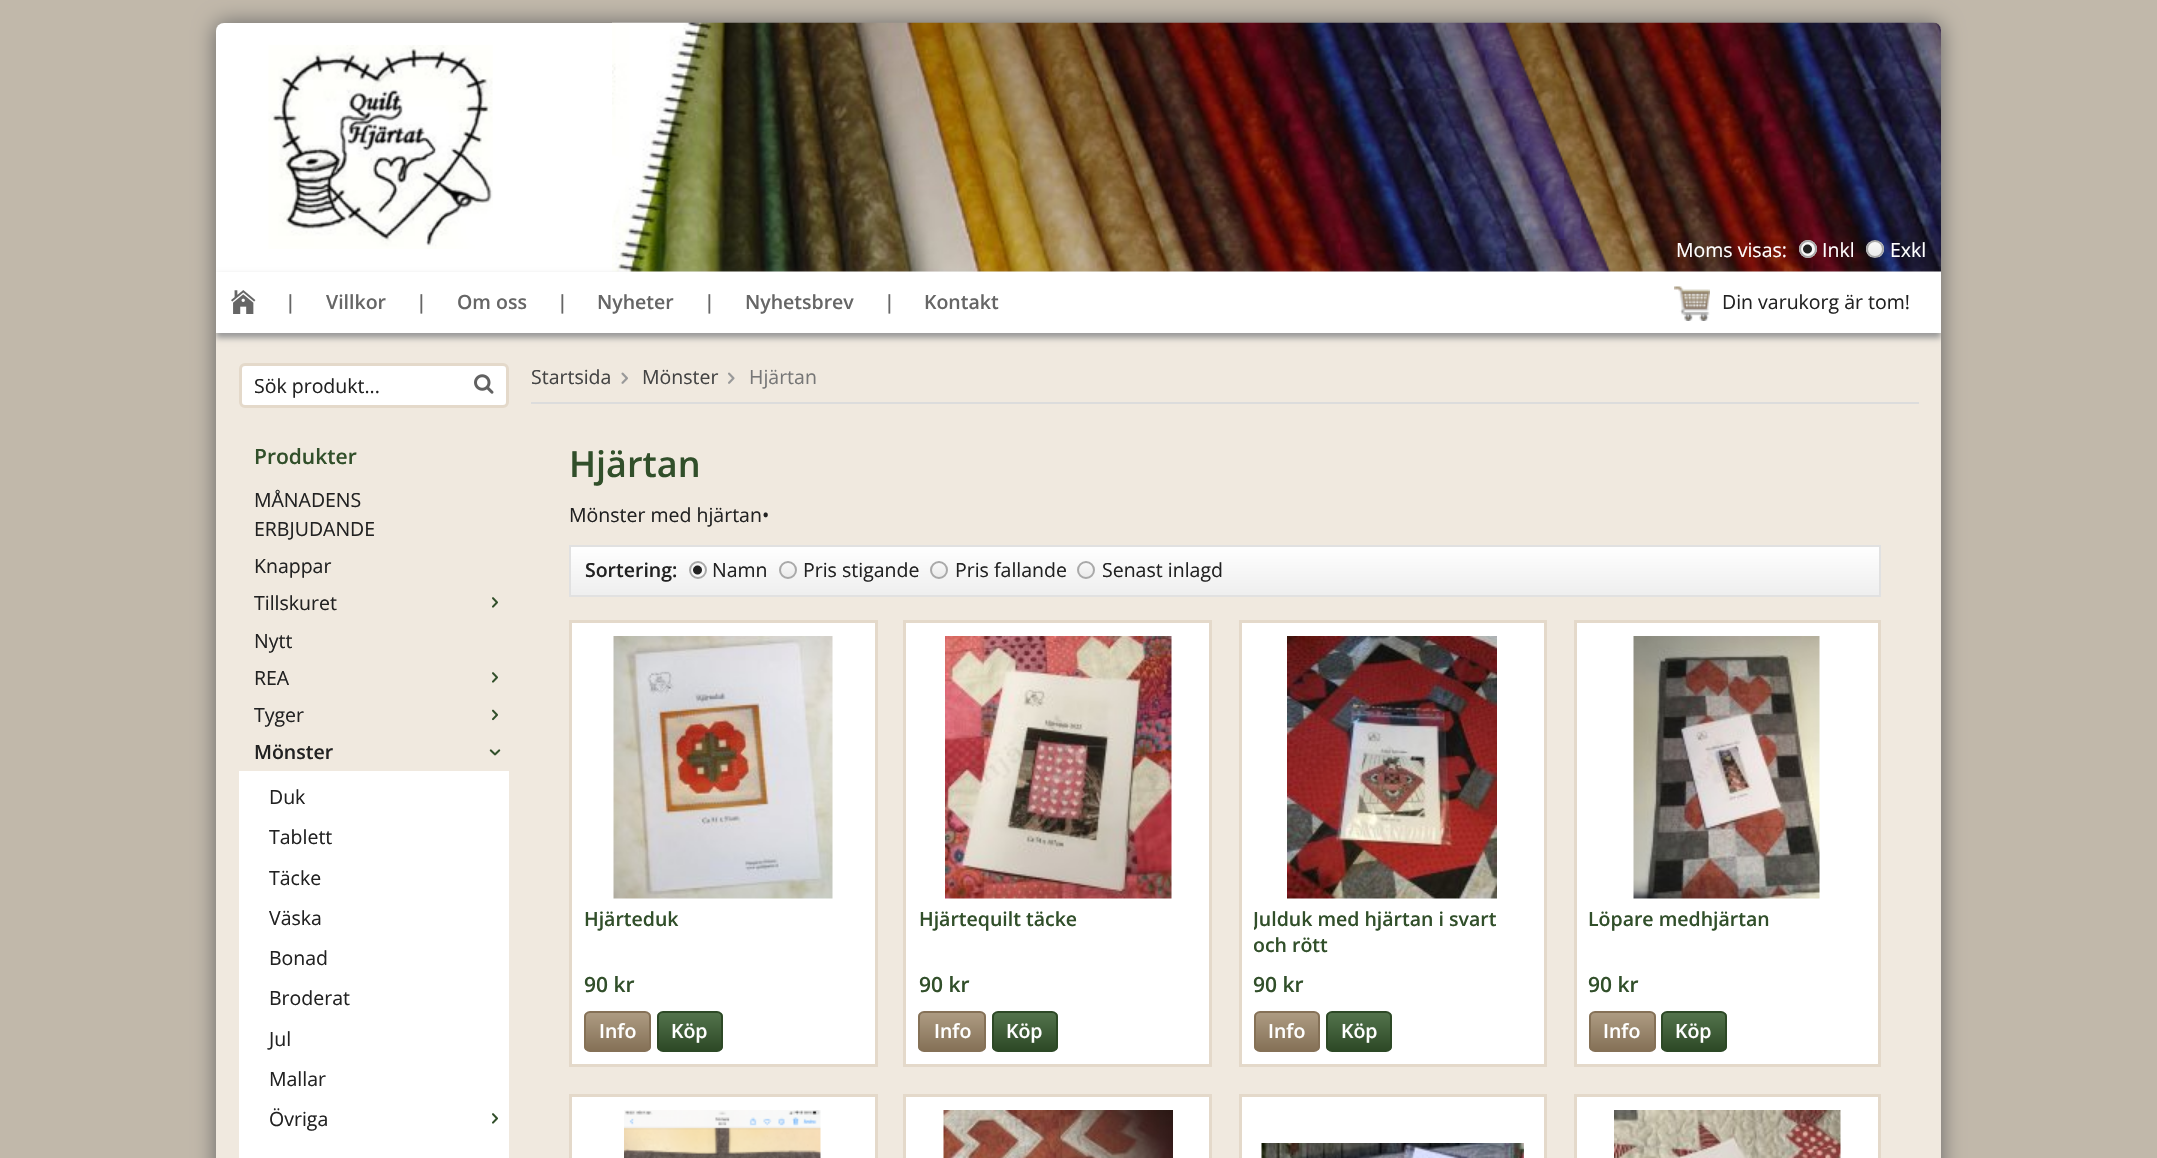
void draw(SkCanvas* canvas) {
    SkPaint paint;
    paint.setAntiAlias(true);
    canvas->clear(0xFFC1B8AA);
    paint.setColor(0xFF666666);
    paint.setMaskFilter(SkMaskFilter::MakeBlur(kNormal_SkBlurStyle, 11));
    canvas->drawRoundRect(SkRect::MakeXYWH(216, 23, 1725, 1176), 8, 8, paint);
    paint.setMaskFilter(nullptr);
    paint.setColor(0xFFFFFFFF);
    canvas->drawRoundRect(SkRect::MakeXYWH(216, 23, 1725, 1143), 8, 8, paint);
    canvas->drawImageRect(SkImages::DeferredFromEncodedData(SkData::MakeFromFileName("img1.png")), SkRect::MakeXYWH(612, 22, 1329, 250), SkSamplingOptions());
    canvas->drawImageRect(SkImages::DeferredFromEncodedData(SkData::MakeFromFileName("img2.png")), SkRect::MakeXYWH(268, 45, 225, 204), SkSamplingOptions());
    SkFont font1(fontMgr->matchFamilyStyle("Open Sans", SkFontStyle::Normal()), 19.5f);
    font1.setSubpixel(true);
    canvas->drawString("Moms visas:", 1676, 257, font1, paint);
    paint.setColor(0xFFF9F9F9);
    canvas->drawCircle(1808, 249, 9, paint);
    canvas->drawImageRect(SkImages::DeferredFromEncodedData(SkData::MakeFromFileName("img3.png")), SkRect::MakeXYWH(1803, 244, 9, 10), SkSamplingOptions());
    paint.setStyle(SkPaint::kStroke_Style);
    paint.setStrokeWidth(2);
    paint.setColor(0xFFA9A9A9);
    canvas->drawCircle(1808, 249, 8, paint);
    paint.setStyle(SkPaint::kFill_Style);
    paint.setColor(0xFFFFFFFF);
    canvas->drawString("Inkl", 1822, 257, font1, paint);
    canvas->save();
    canvas->clipPath(SkPathBuilder().moveTo(1875, 240).cubicTo(1880, 240, 1884, 244, 1884, 249).cubicTo(1884, 254, 1880, 258, 1875, 258).cubicTo(1870, 258, 1866, 254, 1866, 249).cubicTo(1866, 244, 1870, 240, 1875, 240).close().detach(), true);
    {
        const SkColor colors[] = {0xFFF9F9F9, 0xFFE9E9E9};
        const float stops[] = {0, 1};
        const SkPoint ends[] = {{1875, 242}, {1875, 257}};
        paint.setShader(SkGradientShader::MakeLinear(ends, colors, stops, 2, SkTileMode::kClamp));
        paint.setAlpha(255);
    }
    canvas->drawRect(SkRect::MakeXYWH(1866, 242, 18, 15), paint);
    canvas->restore();
    paint.setStyle(SkPaint::kStroke_Style);
    paint.setShader(nullptr);
    paint.setColor(0xFFA9A9A9);
    canvas->drawCircle(1875, 249, 8, paint);
    paint.setStyle(SkPaint::kFill_Style);
    paint.setColor(0xFFFFFFFF);
    canvas->drawString("Exkl", 1890, 257, font1, paint);
    paint.setColor(0xFFF0E9DF);
    canvas->drawRect(SkRect::MakeXYWH(216, 333, 1725, 825), paint);
    canvas->save();
    canvas->clipPath(SkPathBuilder().moveTo(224, 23).lineTo(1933, 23).cubicTo(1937.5f, 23, 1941, 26.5f, 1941, 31).lineTo(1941, 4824).cubicTo(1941, 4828.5f, 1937.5f, 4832, 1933, 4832).lineTo(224, 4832).cubicTo(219.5f, 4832, 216, 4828.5f, 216, 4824).lineTo(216, 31).cubicTo(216, 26.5f, 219.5f, 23, 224, 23).close().detach(), true);
    canvas->clipPath(SkPathBuilder(SkPathFillType::kEvenOdd).moveTo(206, 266).lineTo(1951, 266).lineTo(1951, 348).lineTo(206, 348).close().moveTo(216, 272).lineTo(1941, 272).lineTo(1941, 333).lineTo(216, 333).close().detach(), true);
    paint.setColor(0xFF999999);
    paint.setMaskFilter(SkMaskFilter::MakeBlur(kNormal_SkBlurStyle, 3));
    canvas->drawRect(SkRect::MakeXYWH(216, 276, 1725, 62), paint);
    paint.setMaskFilter(nullptr);
    canvas->restore();
    canvas->drawImageRect(SkImages::DeferredFromEncodedData(SkData::MakeFromFileName("img4.png")), SkRect::MakeXYWH(231, 290, 25, 24), SkSamplingOptions());
    SkFont font2(fontMgr->matchFamilyStyle("Open Sans", SkFontStyle(600, SkFontStyle::kNormal_Width, SkFontStyle::kUpright_Slant)), 19.5f);
    font2.setSubpixel(true);
    paint.setColor(0xFF666666);
    canvas->drawString("|", 285, 309, font2, paint);
    canvas->drawString("Villkor", 326, 309, font2, paint);
    canvas->drawString("|", 416, 309, font2, paint);
    canvas->drawString("Om oss", 457, 309, font2, paint);
    canvas->drawString("|", 557, 309, font2, paint);
    canvas->drawString("Nyheter", 597, 309, font2, paint);
    canvas->drawString("|", 704, 309, font2, paint);
    canvas->drawString("Nyhetsbrev", 745, 309, font2, paint);
    canvas->drawString("|", 884, 309, font2, paint);
    canvas->drawString("Kontakt", 924, 309, font2, paint);
    canvas->drawImageRect(SkImages::DeferredFromEncodedData(SkData::MakeFromFileName("img5.png")), SkRect::MakeXYWH(1674, 286, 36, 35), SkSamplingOptions());
    paint.setColor(0xFF222222);
    canvas->drawString("Din varukorg är tom!", 1722, 309, font1, paint);
    paint.setColor(0xFFFFFFFF);
    canvas->drawRoundRect(SkRect::MakeXYWH(240.5f, 364.5f, 267, 42), 4.5f, 4.5f, paint);
    paint.setStyle(SkPaint::kStroke_Style);
    paint.setStrokeWidth(3);
    paint.setColor(0xFFE4D9CA);
    canvas->drawRoundRect(SkRect::MakeXYWH(240.5f, 364.5f, 267, 42), 4.5f, 4.5f, paint);
    paint.setStyle(SkPaint::kFill_Style);
    paint.setColor(0xFF222222);
    canvas->drawString("Sök produkt...", 254, 393, font1, paint);
    canvas->drawImageRect(SkImages::DeferredFromEncodedData(SkData::MakeFromFileName("img6.png")), SkRect::MakeXYWH(474, 374, 20, 20), SkSamplingOptions());
    SkFont font3(fontMgr->matchFamilyStyle("Open Sans", SkFontStyle(600, SkFontStyle::kNormal_Width, SkFontStyle::kUpright_Slant)), 21);
    font3.setSubpixel(true);
    paint.setColor(0xFF314F2A);
    canvas->drawString("Produkter", 254, 464, font3, paint);
    paint.setColor(0xFF222222);
    canvas->drawString("MÅNADENS", 254, 507, font1, paint);
    canvas->drawString("ERBJUDANDE", 254, 536, font1, paint);
    canvas->drawString("Knappar", 254, 573, font1, paint);
    canvas->drawString("Tillskuret", 254, 610, font1, paint);
    canvas->drawImageRect(SkImages::DeferredFromEncodedData(SkData::MakeFromFileName("img7.png")), SkRect::MakeXYWH(492, 597, 6, 11), SkSamplingOptions());
    canvas->drawString("Nytt", 254, 648, font1, paint);
    canvas->drawString("REA", 254, 685, font1, paint);
    canvas->drawImageRect(SkImages::DeferredFromEncodedData(SkData::MakeFromFileName("img7.png")), SkRect::MakeXYWH(492, 672, 6, 11), SkSamplingOptions());
    canvas->drawString("Tyger", 254, 722, font1, paint);
    canvas->drawImageRect(SkImages::DeferredFromEncodedData(SkData::MakeFromFileName("img8.png")), SkRect::MakeXYWH(492, 709, 6, 12), SkSamplingOptions());
    canvas->drawString("Mönster", 254, 759, font2, paint);
    canvas->drawImageRect(SkImages::DeferredFromEncodedData(SkData::MakeFromFileName("img9.png")), SkRect::MakeXYWH(489, 749, 12, 7), SkSamplingOptions());
    paint.setColor(0xFFFFFFFF);
    canvas->drawRect(SkRect::MakeXYWH(239, 771, 270, 387), paint);
    paint.setColor(0xFF222222);
    canvas->drawString("Duk", 269, 804, font1, paint);
    canvas->drawString("Tablett", 269, 844, font1, paint);
    canvas->drawString("Täcke", 269, 885, font1, paint);
    canvas->drawString("Väska", 269, 925, font1, paint);
    canvas->drawString("Bonad", 269, 965, font1, paint);
    canvas->drawString("Broderat", 269, 1005, font1, paint);
    canvas->drawString("Jul", 269, 1046, font1, paint);
    canvas->drawString("Mallar", 269, 1086, font1, paint);
    canvas->drawString("Övriga", 269, 1126, font1, paint);
    canvas->drawImageRect(SkImages::DeferredFromEncodedData(SkData::MakeFromFileName("img10.png")), SkRect::MakeXYWH(492, 1113, 6, 11), SkSamplingOptions());
    paint.setColor(0xFFDCDCDC);
    canvas->drawRect(SkRect::MakeXYWH(531, 402, 1388, 2), paint);
    paint.setColor(0xFF444444);
    canvas->drawString("Startsida", 531, 384, font1, paint);
    canvas->drawImageRect(SkImages::DeferredFromEncodedData(SkData::MakeFromFileName("img11.png")), SkRect::MakeXYWH(621, 372, 7, 12), SkSamplingOptions());
    canvas->drawString("Mönster", 642, 384, font1, paint);
    canvas->drawImageRect(SkImages::DeferredFromEncodedData(SkData::MakeFromFileName("img12.png")), SkRect::MakeXYWH(728, 372, 7, 12), SkSamplingOptions());
    paint.setColor(0xFF777777);
    canvas->drawString("Hjärtan", 749, 384, font1, paint);
    SkFont font4(fontMgr->matchFamilyStyle("Open Sans", SkFontStyle(600, SkFontStyle::kNormal_Width, SkFontStyle::kUpright_Slant)), 36);
    font4.setSubpixel(true);
    paint.setColor(0xFF314F2A);
    canvas->drawString("Hjärtan", 569, 477, font4, paint);
    paint.setColor(0xFF222222);
    canvas->drawString("Mönster med hjärtan•", 569, 522, font1, paint);
    {
        const SkColor colors[] = {0xFFFFFFFF, 0xFFEEEEEE};
        const float stops[] = {0, 1};
        const SkPoint ends[] = {{1225, 546}, {1225, 596}};
        paint.setShader(SkGradientShader::MakeLinear(ends, colors, stops, 2, SkTileMode::kClamp));
        paint.setAlpha(255);
    }
    canvas->drawRect(SkRect::MakeXYWH(571, 547, 1308, 48), paint);
    paint.setStyle(SkPaint::kStroke_Style);
    paint.setStrokeWidth(2);
    paint.setShader(nullptr);
    paint.setColor(0xFFE1E1E1);
    canvas->drawRect(SkRect::MakeXYWH(570, 546, 1310, 50), paint);
    paint.setStyle(SkPaint::kFill_Style);
    paint.setColor(0xFF222222);
    canvas->drawString("Sortering:", 585, 577, font2, paint);
    paint.setColor(0xFFF9F9F9);
    canvas->drawCircle(698, 570, 9, paint);
    canvas->drawImageRect(SkImages::DeferredFromEncodedData(SkData::MakeFromFileName("img3.png")), SkRect::MakeXYWH(693, 565, 9, 10), SkSamplingOptions());
    paint.setStyle(SkPaint::kStroke_Style);
    paint.setColor(0xFFA9A9A9);
    canvas->drawCircle(698, 570, 8, paint);
    paint.setStyle(SkPaint::kFill_Style);
    paint.setColor(0xFF222222);
    canvas->drawString("Namn", 712, 577, font1, paint);
    canvas->save();
    canvas->clipPath(SkPathBuilder().moveTo(788, 561).cubicTo(793, 561, 797, 565, 797, 570).cubicTo(797, 575, 793, 579, 788, 579).cubicTo(783, 579, 779, 575, 779, 570).cubicTo(779, 565, 783, 561, 788, 561).close().detach(), true);
    {
        const SkColor colors[] = {0xFFF9F9F9, 0xFFE9E9E9};
        const float stops[] = {0, 1};
        const SkPoint ends[] = {{788, 563}, {788, 578}};
        paint.setShader(SkGradientShader::MakeLinear(ends, colors, stops, 2, SkTileMode::kClamp));
        paint.setAlpha(255);
    }
    canvas->drawRect(SkRect::MakeXYWH(779, 563, 18, 15), paint);
    canvas->restore();
    paint.setStyle(SkPaint::kStroke_Style);
    paint.setShader(nullptr);
    paint.setColor(0xFFA9A9A9);
    canvas->drawCircle(788, 570, 8, paint);
    paint.setStyle(SkPaint::kFill_Style);
    paint.setColor(0xFF222222);
    canvas->drawString("Pris stigande", 803, 577, font1, paint);
    canvas->save();
    canvas->clipPath(SkPathBuilder().moveTo(939, 561).cubicTo(944, 561, 948, 565, 948, 570).cubicTo(948, 575, 944, 579, 939, 579).cubicTo(934, 579, 930, 575, 930, 570).cubicTo(930, 565, 934, 561, 939, 561).close().detach(), true);
    {
        const SkColor colors[] = {0xFFF9F9F9, 0xFFE9E9E9};
        const float stops[] = {0, 1};
        const SkPoint ends[] = {{939, 563}, {939, 578}};
        paint.setShader(SkGradientShader::MakeLinear(ends, colors, stops, 2, SkTileMode::kClamp));
        paint.setAlpha(255);
    }
    canvas->drawRect(SkRect::MakeXYWH(930, 563, 18, 15), paint);
    canvas->restore();
    paint.setStyle(SkPaint::kStroke_Style);
    paint.setShader(nullptr);
    paint.setColor(0xFFA9A9A9);
    canvas->drawCircle(939, 570, 8, paint);
    paint.setStyle(SkPaint::kFill_Style);
    paint.setColor(0xFF222222);
    canvas->drawString("Pris fallande", 955, 577, font1, paint);
    canvas->save();
    canvas->clipPath(SkPathBuilder().moveTo(1086, 561).cubicTo(1091, 561, 1095, 565, 1095, 570).cubicTo(1095, 575, 1091, 579, 1086, 579).cubicTo(1081, 579, 1077, 575, 1077, 570).cubicTo(1077, 565, 1081, 561, 1086, 561).close().detach(), true);
    {
        const SkColor colors[] = {0xFFF9F9F9, 0xFFE9E9E9};
        const float stops[] = {0, 1};
        const SkPoint ends[] = {{1086, 563}, {1086, 578}};
        paint.setShader(SkGradientShader::MakeLinear(ends, colors, stops, 2, SkTileMode::kClamp));
        paint.setAlpha(255);
    }
    canvas->drawRect(SkRect::MakeXYWH(1077, 563, 18, 15), paint);
    canvas->restore();
    paint.setStyle(SkPaint::kStroke_Style);
    paint.setShader(nullptr);
    paint.setColor(0xFFA9A9A9);
    canvas->drawCircle(1086, 570, 8, paint);
    paint.setStyle(SkPaint::kFill_Style);
    paint.setColor(0xFF222222);
    canvas->drawString("Senast inlagd", 1102, 577, font1, paint);
    paint.setColor(0xFFFFFFFF);
    canvas->drawRect(SkRect::MakeXYWH(570.5f, 621.5f, 306, 444), paint);
    paint.setStyle(SkPaint::kStroke_Style);
    paint.setStrokeWidth(3);
    paint.setColor(0xFFE4D9CA);
    canvas->drawRect(SkRect::MakeXYWH(570.5f, 621.5f, 306, 444), paint);
    canvas->drawImageRect(SkImages::DeferredFromEncodedData(SkData::MakeFromFileName("img13.png")), SkRect::MakeXYWH(613, 636, 220, 263), SkSamplingOptions());
    paint.setStyle(SkPaint::kFill_Style);
    paint.setColor(0xFF314F2A);
    canvas->drawString("Hjärteduk", 584, 926, font2, paint);
    canvas->drawString("90 kr", 584, 992, font3, paint);
    canvas->save();
    canvas->clipPath(SkPathBuilder().moveTo(590, 1011).lineTo(645, 1011).cubicTo(648.5f, 1011, 651, 1013.5f, 651, 1017).lineTo(651, 1046).cubicTo(651, 1049.5f, 648.5f, 1052, 645, 1052).lineTo(590, 1052).cubicTo(586.5f, 1052, 584, 1049.5f, 584, 1046).lineTo(584, 1017).cubicTo(584, 1013.5f, 586.5f, 1011, 590, 1011).close().detach(), true);
    {
        const SkColor colors[] = {0xFFAD9B82, 0xFF857157};
        const float stops[] = {0, 1};
        const SkPoint ends[] = {{617, 1013}, {617, 1050}};
        paint.setShader(SkGradientShader::MakeLinear(ends, colors, stops, 2, SkTileMode::kClamp));
        paint.setAlpha(255);
    }
    canvas->drawRect(SkRect::MakeXYWH(584, 1013, 67, 37), paint);
    canvas->restore();
    paint.setStyle(SkPaint::kStroke_Style);
    paint.setStrokeWidth(2);
    paint.setShader(nullptr);
    paint.setColor(0xFF857157);
    canvas->drawRoundRect(SkRect::MakeXYWH(585, 1012, 65, 39), 5, 5, paint);
    paint.setStyle(SkPaint::kFill_Style);
    paint.setColor(0xFFFFFFFF);
    canvas->drawString("Info", 599, 1038, font2, paint);
    canvas->save();
    canvas->clipPath(SkPathBuilder().moveTo(663, 1011).lineTo(717, 1011).cubicTo(720.5f, 1011, 723, 1013.5f, 723, 1017).lineTo(723, 1046).cubicTo(723, 1049.5f, 720.5f, 1052, 717, 1052).lineTo(663, 1052).cubicTo(659.5f, 1052, 657, 1049.5f, 657, 1046).lineTo(657, 1017).cubicTo(657, 1013.5f, 659.5f, 1011, 663, 1011).close().detach(), true);
    {
        const SkColor colors[] = {0xFF53734C, 0xFF2D4926};
        const float stops[] = {0, 1};
        const SkPoint ends[] = {{690, 1013}, {690, 1050}};
        paint.setShader(SkGradientShader::MakeLinear(ends, colors, stops, 2, SkTileMode::kClamp));
        paint.setAlpha(255);
    }
    canvas->drawRect(SkRect::MakeXYWH(657, 1013, 66, 37), paint);
    canvas->restore();
    paint.setStyle(SkPaint::kStroke_Style);
    paint.setShader(nullptr);
    paint.setColor(0xFF2D4926);
    canvas->drawRoundRect(SkRect::MakeXYWH(658, 1012, 64, 39), 5, 5, paint);
    paint.setStyle(SkPaint::kFill_Style);
    paint.setColor(0xFFFFFFFF);
    canvas->drawString("Köp", 671, 1038, font2, paint);
    canvas->drawRect(SkRect::MakeXYWH(904.5f, 621.5f, 306, 444), paint);
    paint.setStyle(SkPaint::kStroke_Style);
    paint.setStrokeWidth(3);
    paint.setColor(0xFFE4D9CA);
    canvas->drawRect(SkRect::MakeXYWH(904.5f, 621.5f, 306, 444), paint);
    canvas->drawImageRect(SkImages::DeferredFromEncodedData(SkData::MakeFromFileName("img14.png")), SkRect::MakeXYWH(945, 636, 227, 263), SkSamplingOptions());
    paint.setStyle(SkPaint::kFill_Style);
    paint.setColor(0xFF314F2A);
    canvas->drawString("Hjärtequilt täcke", 919, 926, font2, paint);
    canvas->drawString("90 kr", 919, 992, font3, paint);
    canvas->save();
    canvas->clipPath(SkPathBuilder().moveTo(924, 1011).lineTo(980, 1011).cubicTo(983.5f, 1011, 986, 1013.5f, 986, 1017).lineTo(986, 1046).cubicTo(986, 1049.5f, 983.5f, 1052, 980, 1052).lineTo(924, 1052).cubicTo(920.5f, 1052, 918, 1049.5f, 918, 1046).lineTo(918, 1017).cubicTo(918, 1013.5f, 920.5f, 1011, 924, 1011).close().detach(), true);
    {
        const SkColor colors[] = {0xFFAD9B82, 0xFF857157};
        const float stops[] = {0, 1};
        const SkPoint ends[] = {{952, 1013}, {952, 1050}};
        paint.setShader(SkGradientShader::MakeLinear(ends, colors, stops, 2, SkTileMode::kClamp));
        paint.setAlpha(255);
    }
    canvas->drawRect(SkRect::MakeXYWH(918, 1013, 68, 37), paint);
    canvas->restore();
    paint.setStyle(SkPaint::kStroke_Style);
    paint.setStrokeWidth(2);
    paint.setShader(nullptr);
    paint.setColor(0xFF857157);
    canvas->drawRoundRect(SkRect::MakeXYWH(919, 1012, 66, 39), 5, 5, paint);
    paint.setStyle(SkPaint::kFill_Style);
    paint.setColor(0xFFFFFFFF);
    canvas->drawString("Info", 934, 1038, font2, paint);
    canvas->save();
    canvas->clipPath(SkPathBuilder().moveTo(998, 1011).lineTo(1052, 1011).cubicTo(1055.5f, 1011, 1058, 1013.5f, 1058, 1017).lineTo(1058, 1046).cubicTo(1058, 1049.5f, 1055.5f, 1052, 1052, 1052).lineTo(998, 1052).cubicTo(994.5f, 1052, 992, 1049.5f, 992, 1046).lineTo(992, 1017).cubicTo(992, 1013.5f, 994.5f, 1011, 998, 1011).close().detach(), true);
    {
        const SkColor colors[] = {0xFF53734C, 0xFF2D4926};
        const float stops[] = {0, 1};
        const SkPoint ends[] = {{1025, 1013}, {1025, 1050}};
        paint.setShader(SkGradientShader::MakeLinear(ends, colors, stops, 2, SkTileMode::kClamp));
        paint.setAlpha(255);
    }
    canvas->drawRect(SkRect::MakeXYWH(992, 1013, 66, 37), paint);
    canvas->restore();
    paint.setStyle(SkPaint::kStroke_Style);
    paint.setShader(nullptr);
    paint.setColor(0xFF2D4926);
    canvas->drawRoundRect(SkRect::MakeXYWH(993, 1012, 64, 39), 5, 5, paint);
    paint.setStyle(SkPaint::kFill_Style);
    paint.setColor(0xFFFFFFFF);
    canvas->drawString("Köp", 1006, 1038, font2, paint);
    canvas->drawRect(SkRect::MakeXYWH(1240.5f, 621.5f, 305, 444), paint);
    paint.setStyle(SkPaint::kStroke_Style);
    paint.setStrokeWidth(3);
    paint.setColor(0xFFE4D9CA);
    canvas->drawRect(SkRect::MakeXYWH(1240.5f, 621.5f, 305, 444), paint);
    canvas->drawImageRect(SkImages::DeferredFromEncodedData(SkData::MakeFromFileName("img15.png")), SkRect::MakeXYWH(1287, 636, 210, 263), SkSamplingOptions());
    canvas->save();
    canvas->clipRect(SkRect::MakeXYWH(1254, 908, 278, 52));
    paint.setStyle(SkPaint::kFill_Style);
    paint.setColor(0xFF314F2A);
    canvas->drawString("Julduk med hjärtan i svart", 1253, 926, font2, paint);
    canvas->restore();
    canvas->drawString("och rött", 1253, 952, font2, paint);
    canvas->drawString("90 kr", 1253, 992, font3, paint);
    canvas->save();
    canvas->clipPath(SkPathBuilder().moveTo(1260, 1011).lineTo(1314, 1011).cubicTo(1317.5f, 1011, 1320, 1013.5f, 1320, 1017).lineTo(1320, 1046).cubicTo(1320, 1049.5f, 1317.5f, 1052, 1314, 1052).lineTo(1260, 1052).cubicTo(1256.5f, 1052, 1254, 1049.5f, 1254, 1046).lineTo(1254, 1017).cubicTo(1254, 1013.5f, 1256.5f, 1011, 1260, 1011).close().detach(), true);
    {
        const SkColor colors[] = {0xFFAD9B82, 0xFF857157};
        const float stops[] = {0, 1};
        const SkPoint ends[] = {{1287, 1013}, {1287, 1050}};
        paint.setShader(SkGradientShader::MakeLinear(ends, colors, stops, 2, SkTileMode::kClamp));
        paint.setAlpha(255);
    }
    canvas->drawRect(SkRect::MakeXYWH(1254, 1013, 66, 37), paint);
    canvas->restore();
    paint.setStyle(SkPaint::kStroke_Style);
    paint.setStrokeWidth(2);
    paint.setShader(nullptr);
    paint.setColor(0xFF857157);
    canvas->drawRoundRect(SkRect::MakeXYWH(1255, 1012, 64, 39), 5, 5, paint);
    paint.setStyle(SkPaint::kFill_Style);
    paint.setColor(0xFFFFFFFF);
    canvas->drawString("Info", 1268, 1038, font2, paint);
    canvas->save();
    canvas->clipPath(SkPathBuilder().moveTo(1332, 1011).lineTo(1386, 1011).cubicTo(1389.5f, 1011, 1392, 1013.5f, 1392, 1017).lineTo(1392, 1046).cubicTo(1392, 1049.5f, 1389.5f, 1052, 1386, 1052).lineTo(1332, 1052).cubicTo(1328.5f, 1052, 1326, 1049.5f, 1326, 1046).lineTo(1326, 1017).cubicTo(1326, 1013.5f, 1328.5f, 1011, 1332, 1011).close().detach(), true);
    {
        const SkColor colors[] = {0xFF53734C, 0xFF2D4926};
        const float stops[] = {0, 1};
        const SkPoint ends[] = {{1359, 1013}, {1359, 1050}};
        paint.setShader(SkGradientShader::MakeLinear(ends, colors, stops, 2, SkTileMode::kClamp));
        paint.setAlpha(255);
    }
    canvas->drawRect(SkRect::MakeXYWH(1326, 1013, 66, 37), paint);
    canvas->restore();
    paint.setStyle(SkPaint::kStroke_Style);
    paint.setShader(nullptr);
    paint.setColor(0xFF2D4926);
    canvas->drawRoundRect(SkRect::MakeXYWH(1327, 1012, 64, 39), 5, 5, paint);
    paint.setStyle(SkPaint::kFill_Style);
    paint.setColor(0xFFFFFFFF);
    canvas->drawString("Köp", 1341, 1038, font2, paint);
    canvas->drawRect(SkRect::MakeXYWH(1575.5f, 621.5f, 304, 444), paint);
    paint.setStyle(SkPaint::kStroke_Style);
    paint.setStrokeWidth(3);
    paint.setColor(0xFFE4D9CA);
    canvas->drawRect(SkRect::MakeXYWH(1575.5f, 621.5f, 304, 444), paint);
    canvas->drawImageRect(SkImages::DeferredFromEncodedData(SkData::MakeFromFileName("img16.png")), SkRect::MakeXYWH(1633, 636, 187, 263), SkSamplingOptions());
    paint.setStyle(SkPaint::kFill_Style);
    paint.setColor(0xFF314F2A);
    canvas->drawString("Löpare medhjärtan", 1588, 926, font2, paint);
    canvas->drawString("90 kr", 1588, 992, font3, paint);
    canvas->save();
    canvas->clipPath(SkPathBuilder().moveTo(1595, 1011).lineTo(1650, 1011).cubicTo(1653.5f, 1011, 1656, 1013.5f, 1656, 1017).lineTo(1656, 1046).cubicTo(1656, 1049.5f, 1653.5f, 1052, 1650, 1052).lineTo(1595, 1052).cubicTo(1591.5f, 1052, 1589, 1049.5f, 1589, 1046).lineTo(1589, 1017).cubicTo(1589, 1013.5f, 1591.5f, 1011, 1595, 1011).close().detach(), true);
    {
        const SkColor colors[] = {0xFFAD9B82, 0xFF857157};
        const float stops[] = {0, 1};
        const SkPoint ends[] = {{1622, 1013}, {1622, 1050}};
        paint.setShader(SkGradientShader::MakeLinear(ends, colors, stops, 2, SkTileMode::kClamp));
        paint.setAlpha(255);
    }
    canvas->drawRect(SkRect::MakeXYWH(1589, 1013, 67, 37), paint);
    canvas->restore();
    paint.setStyle(SkPaint::kStroke_Style);
    paint.setStrokeWidth(2);
    paint.setShader(nullptr);
    paint.setColor(0xFF857157);
    canvas->drawRoundRect(SkRect::MakeXYWH(1590, 1012, 65, 39), 5, 5, paint);
    paint.setStyle(SkPaint::kFill_Style);
    paint.setColor(0xFFFFFFFF);
    canvas->drawString("Info", 1603, 1038, font2, paint);
    canvas->save();
    canvas->clipPath(SkPathBuilder().moveTo(1667, 1011).lineTo(1721, 1011).cubicTo(1724.5f, 1011, 1727, 1013.5f, 1727, 1017).lineTo(1727, 1046).cubicTo(1727, 1049.5f, 1724.5f, 1052, 1721, 1052).lineTo(1667, 1052).cubicTo(1663.5f, 1052, 1661, 1049.5f, 1661, 1046).lineTo(1661, 1017).cubicTo(1661, 1013.5f, 1663.5f, 1011, 1667, 1011).close().detach(), true);
    {
        const SkColor colors[] = {0xFF53734C, 0xFF2D4926};
        const float stops[] = {0, 1};
        const SkPoint ends[] = {{1694, 1013}, {1694, 1050}};
        paint.setShader(SkGradientShader::MakeLinear(ends, colors, stops, 2, SkTileMode::kClamp));
        paint.setAlpha(255);
    }
    canvas->drawRect(SkRect::MakeXYWH(1661, 1013, 66, 37), paint);
    canvas->restore();
    paint.setStyle(SkPaint::kStroke_Style);
    paint.setShader(nullptr);
    paint.setColor(0xFF2D4926);
    canvas->drawRoundRect(SkRect::MakeXYWH(1662, 1012, 64, 39), 5, 5, paint);
    paint.setStyle(SkPaint::kFill_Style);
    paint.setColor(0xFFFFFFFF);
    canvas->drawString("Köp", 1675, 1038, font2, paint);
    canvas->drawRect(SkRect::MakeXYWH(570.5f, 1095.5f, 306, 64), paint);
    paint.setStyle(SkPaint::kStroke_Style);
    paint.setStrokeWidth(3);
    paint.setColor(0xFFE4D9CA);
    canvas->drawRect(SkRect::MakeXYWH(570.5f, 1095.5f, 306, 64), paint);
    canvas->drawImageRect(SkImages::DeferredFromEncodedData(SkData::MakeFromFileName("img17.png")), SkRect::MakeXYWH(624, 1110, 197, 48), SkSamplingOptions());
    paint.setStyle(SkPaint::kFill_Style);
    paint.setColor(0xFFFFFFFF);
    canvas->drawRect(SkRect::MakeXYWH(904.5f, 1095.5f, 306, 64), paint);
    paint.setStyle(SkPaint::kStroke_Style);
    paint.setColor(0xFFE4D9CA);
    canvas->drawRect(SkRect::MakeXYWH(904.5f, 1095.5f, 306, 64), paint);
    canvas->drawImageRect(SkImages::DeferredFromEncodedData(SkData::MakeFromFileName("img18.png")), SkRect::MakeXYWH(943, 1110, 230, 48), SkSamplingOptions());
    paint.setStyle(SkPaint::kFill_Style);
    paint.setColor(0xFFFFFFFF);
    canvas->drawRect(SkRect::MakeXYWH(1240.5f, 1095.5f, 305, 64), paint);
    paint.setStyle(SkPaint::kStroke_Style);
    paint.setColor(0xFFE4D9CA);
    canvas->drawRect(SkRect::MakeXYWH(1240.5f, 1095.5f, 305, 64), paint);
    canvas->drawImageRect(SkImages::DeferredFromEncodedData(SkData::MakeFromFileName("img19.png")), SkRect::MakeXYWH(1261, 1143, 263, 15), SkSamplingOptions());
    paint.setStyle(SkPaint::kFill_Style);
    paint.setColor(0xFFFFFFFF);
    canvas->drawRect(SkRect::MakeXYWH(1575.5f, 1095.5f, 304, 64), paint);
    paint.setStyle(SkPaint::kStroke_Style);
    paint.setColor(0xFFE4D9CA);
    canvas->drawRect(SkRect::MakeXYWH(1575.5f, 1095.5f, 304, 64), paint);
    canvas->drawImageRect(SkImages::DeferredFromEncodedData(SkData::MakeFromFileName("img20.png")), SkRect::MakeXYWH(1614, 1110, 227, 48), SkSamplingOptions());
}
